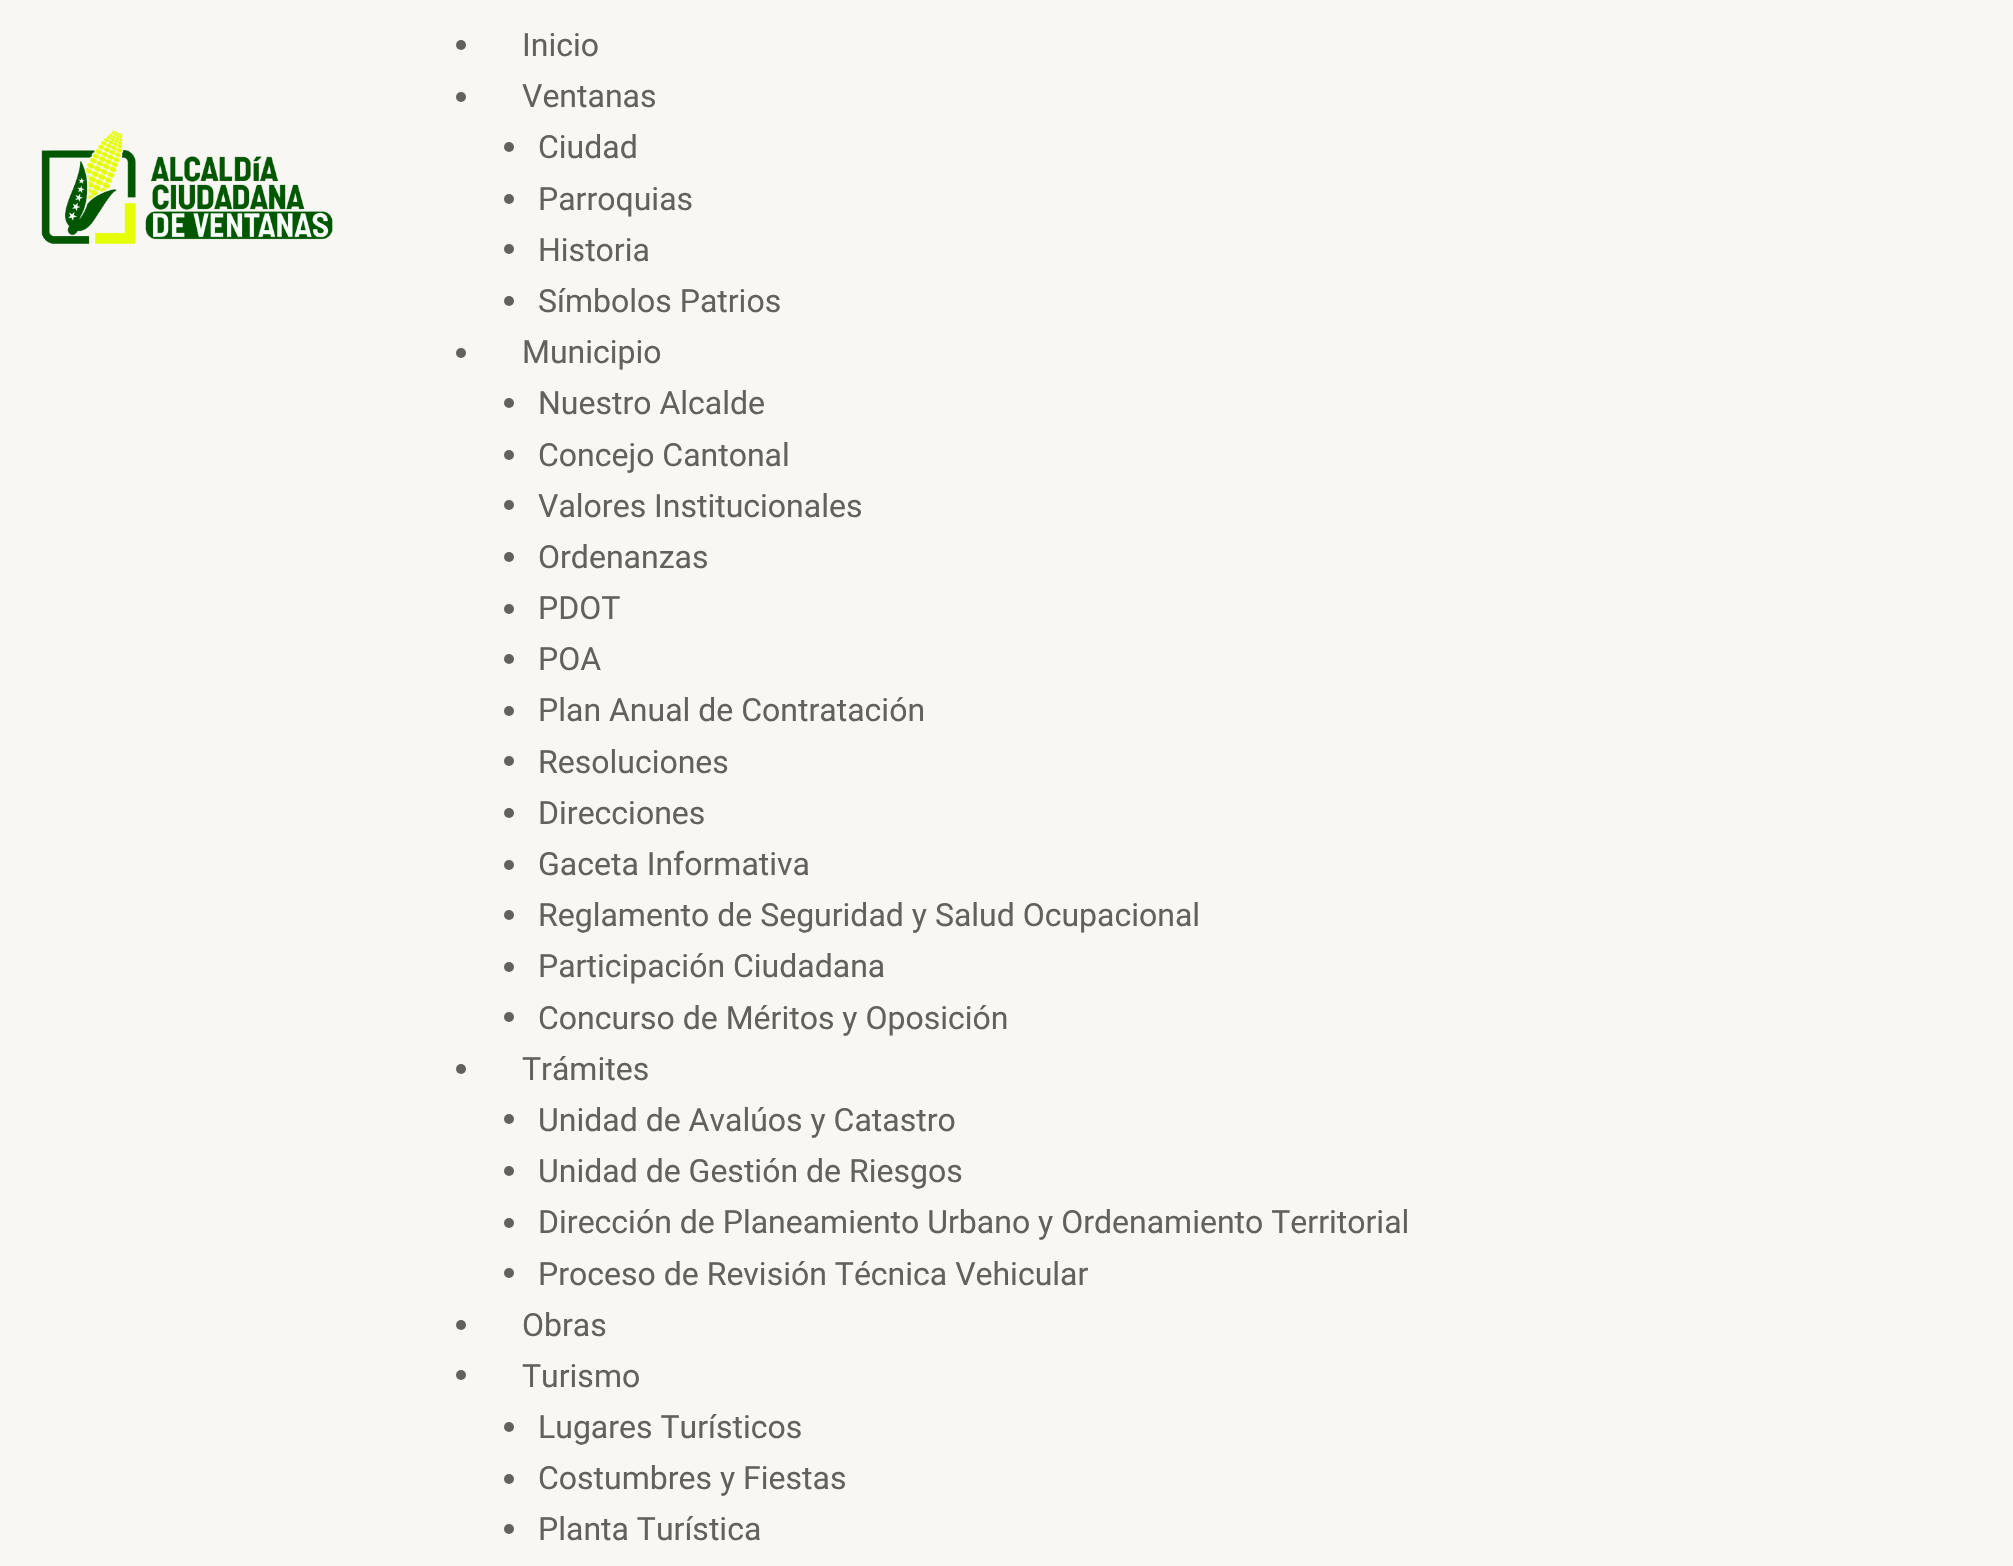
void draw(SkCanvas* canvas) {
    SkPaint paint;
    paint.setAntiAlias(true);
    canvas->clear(0xFFF8F7F3);
    canvas->drawImageRect(SkImages::DeferredFromEncodedData(SkData::MakeFromFileName("img1.png")), SkRect::MakeXYWH(41, 130, 292, 114), SkSamplingOptions());
    paint.setColor(0xFF62615C);
    canvas->drawCircle(461, 45, 5, paint);
    SkFont font1(fontMgr->matchFamilyStyle("Roboto", SkFontStyle::Normal()), 32);
    font1.setSubpixel(true);
    canvas->drawString("Inicio", 522, 56, font1, paint);
    canvas->drawCircle(461, 97, 5, paint);
    canvas->drawString("Ventanas", 522, 107, font1, paint);
    canvas->drawCircle(509, 147, 5, paint);
    canvas->drawString("Ciudad", 538, 158, font1, paint);
    canvas->drawCircle(509, 199, 5, paint);
    canvas->drawString("Parroquias", 538, 210, font1, paint);
    canvas->drawCircle(509, 249, 5, paint);
    canvas->drawString("Historia", 538, 261, font1, paint);
    canvas->drawCircle(509, 301, 5, paint);
    canvas->drawString("Símbolos Patrios", 538, 312, font1, paint);
    canvas->drawCircle(461, 353, 5, paint);
    canvas->drawString("Municipio", 522, 363, font1, paint);
    canvas->drawCircle(509, 403, 5, paint);
    canvas->drawString("Nuestro Alcalde", 538, 414, font1, paint);
    canvas->drawCircle(509, 455, 5, paint);
    canvas->drawString("Concejo Cantonal", 538, 466, font1, paint);
    canvas->drawCircle(509, 505, 5, paint);
    canvas->drawString("Valores Institucionales", 538, 517, font1, paint);
    canvas->drawCircle(509, 557, 5, paint);
    canvas->drawString("Ordenanzas", 538, 568, font1, paint);
    canvas->drawCircle(509, 609, 5, paint);
    canvas->drawString("PDOT", 538, 619, font1, paint);
    canvas->drawCircle(509, 659, 5, paint);
    canvas->drawString("POA", 538, 670, font1, paint);
    canvas->drawCircle(509, 711, 5, paint);
    canvas->drawString("Plan Anual de Contratación", 538, 721, font1, paint);
    canvas->drawCircle(509, 761, 5, paint);
    canvas->drawString("Resoluciones", 538, 773, font1, paint);
    canvas->drawCircle(509, 813, 5, paint);
    canvas->drawString("Direcciones", 538, 824, font1, paint);
    canvas->drawCircle(509, 865, 5, paint);
    canvas->drawString("Gaceta Informativa", 538, 875, font1, paint);
    canvas->drawCircle(509, 915, 5, paint);
    canvas->drawString("Reglamento de Seguridad y Salud Ocupacional", 538, 926, font1, paint);
    canvas->drawCircle(509, 967, 5, paint);
    canvas->drawString("Participación Ciudadana", 538, 977, font1, paint);
    canvas->drawCircle(509, 1017, 5, paint);
    canvas->drawString("Concurso de Méritos y Oposición", 538, 1029, font1, paint);
    canvas->drawCircle(461, 1069, 5, paint);
    canvas->drawString("Trámites", 522, 1080, font1, paint);
    canvas->drawCircle(509, 1119, 5, paint);
    canvas->drawString("Unidad de Avalúos y Catastro", 538, 1131, font1, paint);
    canvas->drawCircle(509, 1171, 5, paint);
    canvas->drawString("Unidad de Gestión de Riesgos", 538, 1182, font1, paint);
    canvas->drawCircle(509, 1223, 5, paint);
    canvas->drawString("Dirección de Planeamiento Urbano y Ordenamiento Territorial", 538, 1233, font1, paint);
    canvas->drawCircle(509, 1273, 5, paint);
    canvas->drawString("Proceso de Revisión Técnica Vehicular", 538, 1285, font1, paint);
    canvas->drawCircle(461, 1325, 5, paint);
    canvas->drawString("Obras", 522, 1336, font1, paint);
    canvas->drawCircle(461, 1375, 5, paint);
    canvas->drawString("Turismo", 522, 1387, font1, paint);
    canvas->drawCircle(509, 1427, 5, paint);
    canvas->drawString("Lugares Turísticos", 538, 1438, font1, paint);
    canvas->drawCircle(509, 1479, 5, paint);
    canvas->drawString("Costumbres y Fiestas", 538, 1489, font1, paint);
    canvas->drawCircle(509, 1529, 5, paint);
    canvas->drawString("Planta Turística", 538, 1540, font1, paint);
}
